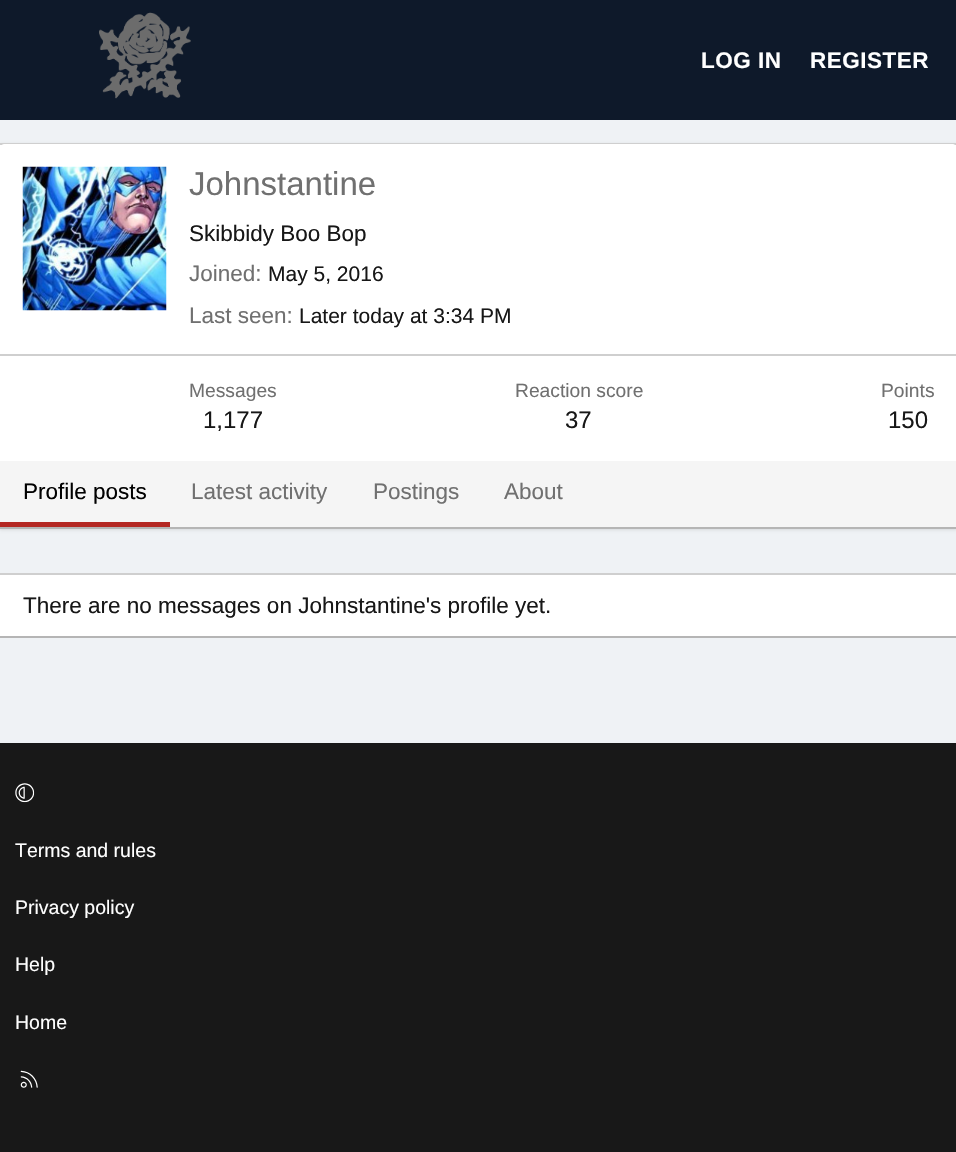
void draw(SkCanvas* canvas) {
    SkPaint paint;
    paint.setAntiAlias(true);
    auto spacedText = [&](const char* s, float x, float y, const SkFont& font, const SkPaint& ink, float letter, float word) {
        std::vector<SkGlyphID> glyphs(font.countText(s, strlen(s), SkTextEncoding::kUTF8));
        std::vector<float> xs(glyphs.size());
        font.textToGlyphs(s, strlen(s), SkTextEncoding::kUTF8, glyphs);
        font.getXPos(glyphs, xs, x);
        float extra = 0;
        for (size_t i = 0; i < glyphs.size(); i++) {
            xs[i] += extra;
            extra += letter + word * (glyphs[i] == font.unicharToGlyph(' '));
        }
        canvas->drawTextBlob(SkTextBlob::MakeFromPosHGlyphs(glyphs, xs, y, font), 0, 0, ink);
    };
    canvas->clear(0xFFEFF2F5);
    paint.setColor(0xFF0E192A);
    canvas->drawRect(SkRect::MakeXYWH(0, 0, 956, 120), paint);
    canvas->drawImageRect(SkImages::DeferredFromEncodedData(SkData::MakeFromFileName("img1.png")), SkRect::MakeXYWH(99, 12, 92, 87), SkSamplingOptions());
    SkFont font1(fontMgr->matchFamilyStyle("Liberation Sans", SkFontStyle::Bold()), 22.5f);
    font1.setSubpixel(true);
    paint.setColor(0xFFFFFFFF);
    spacedText("LOG IN", 701, 68, font1, paint, 0.5f, 0);
    spacedText("REGISTER", 810, 68, font1, paint, 0.5f, 0);
    paint.setColor(0x1A000000);
    paint.setMaskFilter(SkMaskFilter::MakeBlur(kNormal_SkBlurStyle, 1.5f));
    canvas->drawRect(SkRect::MakeXYWH(0, 144, 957, 386), paint);
    paint.setMaskFilter(nullptr);
    paint.setColor(0xFFFFFFFF);
    canvas->drawRect(SkRect::MakeXYWH(0, 145, 956, 316), paint);
    paint.setColor(0xFFCFCFCF);
    canvas->drawRect(SkRect::MakeXYWH(0, 143, 956, 2), paint);
    paint.setColor(0xFFB5B5B5);
    canvas->drawRect(SkRect::MakeXYWH(0, 527, 956, 2), paint);
    paint.setColor(0xFFFFFFFF);
    canvas->drawPath(SkPathBuilder().moveTo(5, 144).lineTo(952, 144).cubicTo(955, 144, 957, 146, 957, 149).lineTo(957, 356).lineTo(0, 356).lineTo(0, 149).cubicTo(0, 146, 2, 144, 5, 144).close().detach(), paint);
    paint.setColor(0xFFCFCFCF);
    canvas->drawRect(SkRect::MakeXYWH(0, 354, 956, 2), paint);
    canvas->drawImageRect(SkImages::DeferredFromEncodedData(SkData::MakeFromFileName("img2.png")), SkRect::MakeXYWH(22, 166, 145, 145), SkSamplingOptions());
    SkFont font2(fontMgr->matchFamilyStyle("Liberation Sans", SkFontStyle::Normal()), 33);
    font2.setSubpixel(true);
    paint.setColor(0xFF707070);
    canvas->drawString("Johnstantine", 189, 195, font2, paint);
    SkFont font3(fontMgr->matchFamilyStyle("Liberation Sans", SkFontStyle::Normal()), 22.5f);
    font3.setSubpixel(true);
    paint.setColor(0xFF171717);
    canvas->drawString("Skibbidy Boo Bop", 189, 241, font3, paint);
    paint.setColor(0xFF707070);
    canvas->drawString("Joined:", 189, 281, font3, paint);
    SkFont font4(fontMgr->matchFamilyStyle("Liberation Sans", SkFontStyle::Normal()), 21);
    font4.setSubpixel(true);
    paint.setColor(0xFF171717);
    canvas->drawString("May 5, 2016", 268, 281, font4, paint);
    paint.setColor(0xFF707070);
    canvas->drawString("Last seen:", 189, 323, font3, paint);
    paint.setColor(0xFF171717);
    canvas->drawString("Later today at 3:34 PM", 299, 323, font4, paint);
    SkFont font5(fontMgr->matchFamilyStyle("Liberation Sans", SkFontStyle::Normal()), 19.25f);
    font5.setSubpixel(true);
    paint.setColor(0xFF707070);
    canvas->drawString("Messages", 189, 397, font5, paint);
    SkFont font6(fontMgr->matchFamilyStyle("Liberation Sans", SkFontStyle::Normal()), 24);
    font6.setSubpixel(true);
    paint.setColor(0xFF171717);
    canvas->drawString("1,177", 203, 428, font6, paint);
    paint.setColor(0xFF707070);
    canvas->drawString("Reaction score", 515, 397, font5, paint);
    paint.setColor(0xFF171717);
    canvas->drawString("37", 565, 428, font6, paint);
    paint.setColor(0xFF707070);
    canvas->drawString("Points", 881, 397, font5, paint);
    paint.setColor(0xFF171717);
    canvas->drawString("150", 888, 428, font6, paint);
    paint.setColor(0xFFF5F5F5);
    canvas->drawRect(SkRect::MakeXYWH(0, 461, 956, 66), paint);
    paint.setColor(0xFFB42722);
    canvas->drawRect(SkRect::MakeXYWH(0, 522, 170, 5), paint);
    paint.setColor(0xFF000000);
    canvas->drawString("Profile posts", 23, 499, font3, paint);
    paint.setColor(0xFF707070);
    canvas->drawString("Latest activity", 191, 499, font3, paint);
    canvas->drawString("Postings", 373, 499, font3, paint);
    canvas->drawString("About", 504, 499, font3, paint);
    paint.setColor(0xFFFFFFFF);
    canvas->drawRect(SkRect::MakeXYWH(0, 575, 956, 61), paint);
    paint.setColor(0xFFCFCFCF);
    canvas->drawRect(SkRect::MakeXYWH(0, 573, 956, 2), paint);
    paint.setColor(0xFFB5B5B5);
    canvas->drawRect(SkRect::MakeXYWH(0, 636, 956, 2), paint);
    paint.setColor(0xFF171717);
    canvas->drawString("There are no messages on Johnstantine's profile yet.", 23, 613, font3, paint);
    paint.setColor(0xFF181818);
    canvas->drawRect(SkRect::MakeXYWH(0, 743, 956, 409), paint);
    canvas->drawImageRect(SkImages::DeferredFromEncodedData(SkData::MakeFromFileName("img3.png")), SkRect::MakeXYWH(15, 783, 20, 20), SkSamplingOptions());
    SkFont font7(fontMgr->matchFamilyStyle("Liberation Sans", SkFontStyle::Normal()), 19.5f);
    font7.setSubpixel(true);
    paint.setColor(0xFFFFFFFF);
    canvas->drawString("Terms and rules", 15, 857, font7, paint);
    canvas->drawString("Privacy policy", 15, 914, font7, paint);
    canvas->drawString("Help", 15, 971, font7, paint);
    canvas->drawString("Home", 15, 1029, font7, paint);
    canvas->drawImageRect(SkImages::DeferredFromEncodedData(SkData::MakeFromFileName("img4.png")), SkRect::MakeXYWH(20, 1070, 18, 18), SkSamplingOptions());
}
